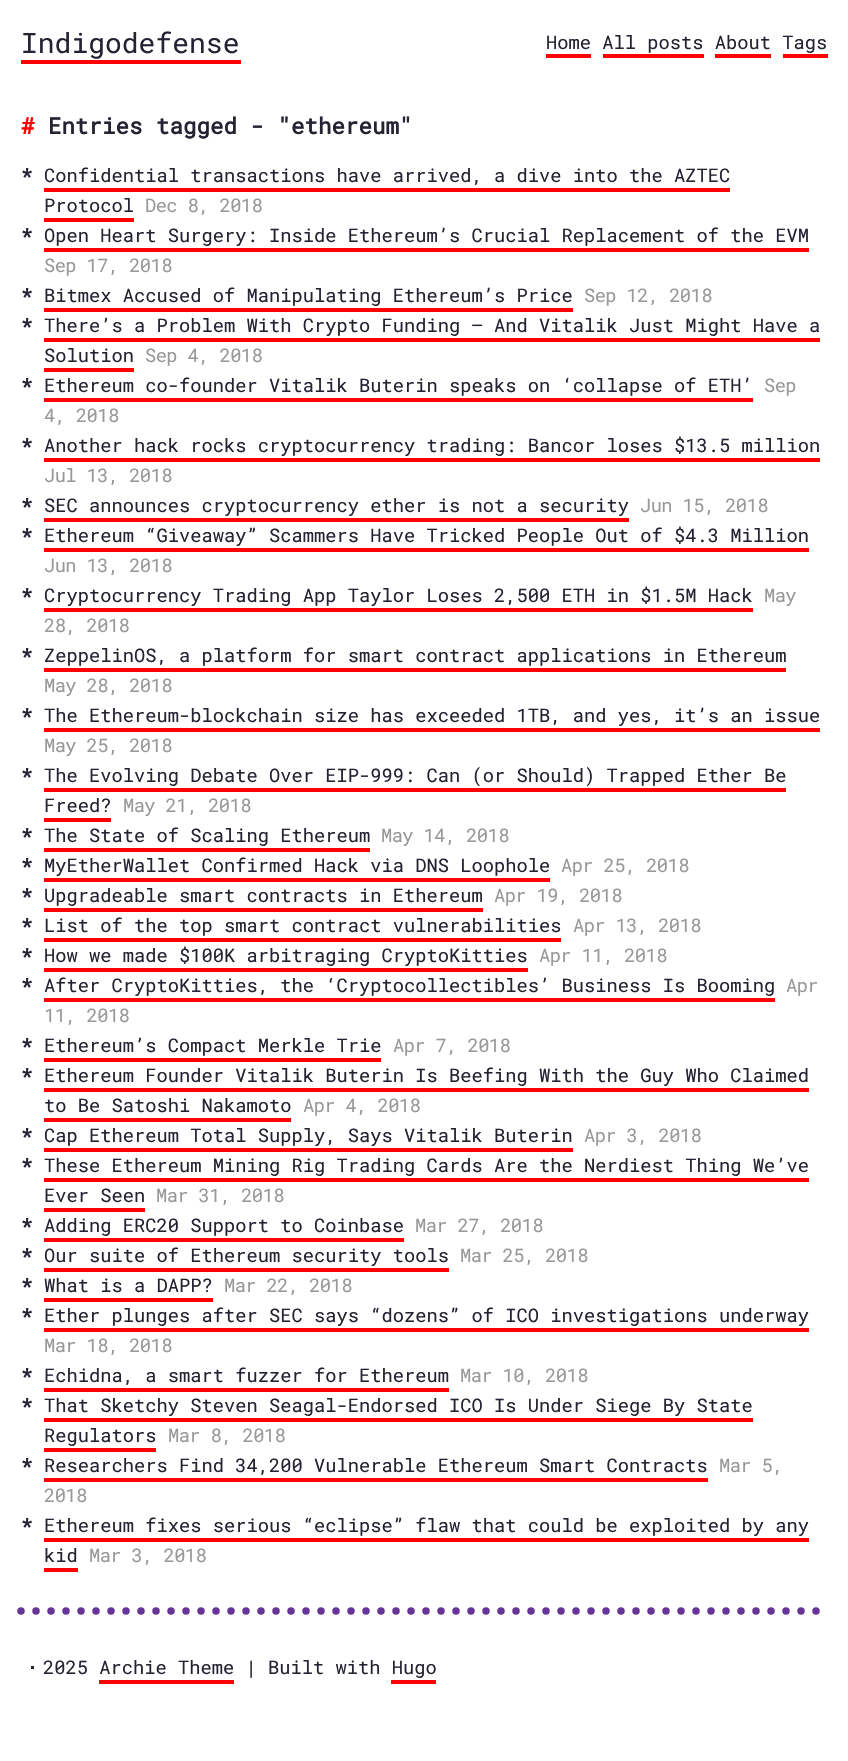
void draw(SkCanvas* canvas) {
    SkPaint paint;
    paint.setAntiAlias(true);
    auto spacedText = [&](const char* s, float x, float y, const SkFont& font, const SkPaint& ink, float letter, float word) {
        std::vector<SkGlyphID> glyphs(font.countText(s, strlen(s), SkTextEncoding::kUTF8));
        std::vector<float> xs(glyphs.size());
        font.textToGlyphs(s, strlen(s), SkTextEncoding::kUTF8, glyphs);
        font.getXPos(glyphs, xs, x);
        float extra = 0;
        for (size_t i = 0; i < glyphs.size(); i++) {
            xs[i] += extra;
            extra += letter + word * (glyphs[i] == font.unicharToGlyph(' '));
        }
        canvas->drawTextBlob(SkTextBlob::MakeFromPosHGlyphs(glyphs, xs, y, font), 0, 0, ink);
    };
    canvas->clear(0xFFFFFFFF);
    SkFont font1(fontMgr->matchFamilyStyle("Roboto Mono", SkFontStyle::Normal()), 28);
    font1.setSubpixel(true);
    paint.setColor(0xFF232333);
    canvas->drawString("Indigodefense", 21, 53, font1, paint);
    paint.setColor(0xFFFF0000);
    canvas->drawRect(SkRect::MakeXYWH(21, 60, 220, 4), paint);
    SkFont font2(fontMgr->matchFamilyStyle("Roboto Mono", SkFontStyle::Normal()), 18.75f);
    font2.setSubpixel(true);
    paint.setColor(0xFF232333);
    canvas->drawString("Home All posts About Tags", 546, 49, font2, paint);
    paint.setColor(0xFFFF0000);
    canvas->drawRect(SkRect::MakeXYWH(546, 54, 45, 4), paint);
    canvas->drawRect(SkRect::MakeXYWH(603, 54, 101, 4), paint);
    canvas->drawRect(SkRect::MakeXYWH(715, 54, 56, 4), paint);
    canvas->drawRect(SkRect::MakeXYWH(783, 54, 45, 4), paint);
    SkFont font3(fontMgr->matchFamilyStyle("Roboto Mono", SkFontStyle::Bold()), 22.5f);
    font3.setSubpixel(true);
    canvas->drawString("#", 21, 134, font3, paint);
    paint.setColor(0xFF232333);
    canvas->drawString("Entries tagged - \"ethereum\"", 48, 134, font3, paint);
    SkFont font4(fontMgr->matchFamilyStyle("Roboto Mono", SkFontStyle::Bold()), 18.75f);
    font4.setSubpixel(true);
    canvas->drawString("*", 21, 182, font4, paint);
    canvas->drawString("Confidential transactions have arrived, a dive into the AZTEC", 44, 182, font2, paint);
    paint.setColor(0xFFFF0000);
    canvas->drawRect(SkRect::MakeXYWH(44, 188, 686, 4), paint);
    paint.setColor(0xFF232333);
    canvas->drawString("Protocol", 44, 212, font2, paint);
    paint.setColor(0xFFFF0000);
    canvas->drawRect(SkRect::MakeXYWH(44, 218, 90, 4), paint);
    paint.setColor(0xFF999999);
    spacedText("Dec 8, 2018", 145, 212, font2, paint, -0.6f, 0);
    paint.setColor(0xFF232333);
    canvas->drawString("*", 21, 242, font4, paint);
    canvas->drawString("Open Heart Surgery: Inside Ethereum’s Crucial Replacement of the EVM", 44, 242, font2, paint);
    paint.setColor(0xFFFF0000);
    canvas->drawRect(SkRect::MakeXYWH(44, 248, 765, 4), paint);
    paint.setColor(0xFF999999);
    spacedText("Sep 17, 2018", 44, 272, font2, paint, -0.6f, 0);
    paint.setColor(0xFF232333);
    canvas->drawString("*", 21, 302, font4, paint);
    canvas->drawString("Bitmex Accused of Manipulating Ethereum’s Price", 44, 302, font2, paint);
    paint.setColor(0xFFFF0000);
    canvas->drawRect(SkRect::MakeXYWH(44, 308, 529, 4), paint);
    paint.setColor(0xFF999999);
    spacedText("Sep 12, 2018", 584, 302, font2, paint, -0.6f, 0);
    paint.setColor(0xFF232333);
    canvas->drawString("*", 21, 332, font4, paint);
    canvas->drawString("There’s a Problem With Crypto Funding – And Vitalik Just Might Have a", 44, 332, font2, paint);
    paint.setColor(0xFFFF0000);
    canvas->drawRect(SkRect::MakeXYWH(44, 338, 776, 4), paint);
    paint.setColor(0xFF232333);
    canvas->drawString("Solution", 44, 362, font2, paint);
    paint.setColor(0xFFFF0000);
    canvas->drawRect(SkRect::MakeXYWH(44, 368, 90, 4), paint);
    paint.setColor(0xFF999999);
    spacedText("Sep 4, 2018", 145, 362, font2, paint, -0.6f, 0);
    paint.setColor(0xFF232333);
    canvas->drawString("*", 21, 392, font4, paint);
    canvas->drawString("Ethereum co-founder Vitalik Buterin speaks on ‘collapse of ETH’", 44, 392, font2, paint);
    paint.setColor(0xFFFF0000);
    canvas->drawRect(SkRect::MakeXYWH(44, 398, 709, 4), paint);
    paint.setColor(0xFF999999);
    spacedText("Sep", 764, 392, font2, paint, -0.6f, 0);
    spacedText("4, 2018", 44, 422, font2, paint, -0.6f, 0);
    paint.setColor(0xFF232333);
    canvas->drawString("*", 21, 452, font4, paint);
    canvas->drawString("Another hack rocks cryptocurrency trading: Bancor loses $13.5 million", 44, 452, font2, paint);
    paint.setColor(0xFFFF0000);
    canvas->drawRect(SkRect::MakeXYWH(44, 458, 776, 4), paint);
    paint.setColor(0xFF999999);
    spacedText("Jul 13, 2018", 44, 482, font2, paint, -0.6f, 0);
    paint.setColor(0xFF232333);
    canvas->drawString("*", 21, 512, font4, paint);
    canvas->drawString("SEC announces cryptocurrency ether is not a security", 44, 512, font2, paint);
    paint.setColor(0xFFFF0000);
    canvas->drawRect(SkRect::MakeXYWH(44, 518, 585, 4), paint);
    paint.setColor(0xFF999999);
    spacedText("Jun 15, 2018", 640, 512, font2, paint, -0.6f, 0);
    paint.setColor(0xFF232333);
    canvas->drawString("*", 21, 542, font4, paint);
    canvas->drawString("Ethereum “Giveaway” Scammers Have Tricked People Out of $4.3 Million", 44, 542, font2, paint);
    paint.setColor(0xFFFF0000);
    canvas->drawRect(SkRect::MakeXYWH(44, 548, 765, 4), paint);
    paint.setColor(0xFF999999);
    spacedText("Jun 13, 2018", 44, 572, font2, paint, -0.6f, 0);
    paint.setColor(0xFF232333);
    canvas->drawString("*", 21, 602, font4, paint);
    canvas->drawString("Cryptocurrency Trading App Taylor Loses 2,500 ETH in $1.5M Hack", 44, 602, font2, paint);
    paint.setColor(0xFFFF0000);
    canvas->drawRect(SkRect::MakeXYWH(44, 608, 709, 4), paint);
    paint.setColor(0xFF999999);
    spacedText("May", 764, 602, font2, paint, -0.6f, 0);
    spacedText("28, 2018", 44, 632, font2, paint, -0.6f, 0);
    paint.setColor(0xFF232333);
    canvas->drawString("*", 21, 662, font4, paint);
    canvas->drawString("ZeppelinOS, a platform for smart contract applications in Ethereum", 44, 662, font2, paint);
    paint.setColor(0xFFFF0000);
    canvas->drawRect(SkRect::MakeXYWH(44, 668, 742, 4), paint);
    paint.setColor(0xFF999999);
    spacedText("May 28, 2018", 44, 692, font2, paint, -0.6f, 0);
    paint.setColor(0xFF232333);
    canvas->drawString("*", 21, 722, font4, paint);
    canvas->drawString("The Ethereum-blockchain size has exceeded 1TB, and yes, it’s an issue", 44, 722, font2, paint);
    paint.setColor(0xFFFF0000);
    canvas->drawRect(SkRect::MakeXYWH(44, 728, 776, 4), paint);
    paint.setColor(0xFF999999);
    spacedText("May 25, 2018", 44, 752, font2, paint, -0.6f, 0);
    paint.setColor(0xFF232333);
    canvas->drawString("*", 21, 782, font4, paint);
    canvas->drawString("The Evolving Debate Over EIP-999: Can (or Should) Trapped Ether Be", 44, 782, font2, paint);
    paint.setColor(0xFFFF0000);
    canvas->drawRect(SkRect::MakeXYWH(44, 788, 742, 4), paint);
    paint.setColor(0xFF232333);
    canvas->drawString("Freed?", 44, 812, font2, paint);
    paint.setColor(0xFFFF0000);
    canvas->drawRect(SkRect::MakeXYWH(44, 818, 67, 4), paint);
    paint.setColor(0xFF999999);
    spacedText("May 21, 2018", 123, 812, font2, paint, -0.6f, 0);
    paint.setColor(0xFF232333);
    canvas->drawString("*", 21, 842, font4, paint);
    canvas->drawString("The State of Scaling Ethereum", 44, 842, font2, paint);
    paint.setColor(0xFFFF0000);
    canvas->drawRect(SkRect::MakeXYWH(44, 848, 326, 4), paint);
    paint.setColor(0xFF999999);
    spacedText("May 14, 2018", 381, 842, font2, paint, -0.6f, 0);
    paint.setColor(0xFF232333);
    canvas->drawString("*", 21, 872, font4, paint);
    canvas->drawString("MyEtherWallet Confirmed Hack via DNS Loophole", 44, 872, font2, paint);
    paint.setColor(0xFFFF0000);
    canvas->drawRect(SkRect::MakeXYWH(44, 878, 506, 4), paint);
    paint.setColor(0xFF999999);
    spacedText("Apr 25, 2018", 561, 872, font2, paint, -0.6f, 0);
    paint.setColor(0xFF232333);
    canvas->drawString("*", 21, 902, font4, paint);
    canvas->drawString("Upgradeable smart contracts in Ethereum", 44, 902, font2, paint);
    paint.setColor(0xFFFF0000);
    canvas->drawRect(SkRect::MakeXYWH(44, 908, 439, 4), paint);
    paint.setColor(0xFF999999);
    spacedText("Apr 19, 2018", 494, 902, font2, paint, -0.6f, 0);
    paint.setColor(0xFF232333);
    canvas->drawString("*", 21, 932, font4, paint);
    canvas->drawString("List of the top smart contract vulnerabilities", 44, 932, font2, paint);
    paint.setColor(0xFFFF0000);
    canvas->drawRect(SkRect::MakeXYWH(44, 938, 517, 4), paint);
    paint.setColor(0xFF999999);
    spacedText("Apr 13, 2018", 573, 932, font2, paint, -0.6f, 0);
    paint.setColor(0xFF232333);
    canvas->drawString("*", 21, 962, font4, paint);
    canvas->drawString("How we made $100K arbitraging CryptoKitties", 44, 962, font2, paint);
    paint.setColor(0xFFFF0000);
    canvas->drawRect(SkRect::MakeXYWH(44, 968, 484, 4), paint);
    paint.setColor(0xFF999999);
    spacedText("Apr 11, 2018", 539, 962, font2, paint, -0.6f, 0);
    paint.setColor(0xFF232333);
    canvas->drawString("*", 21, 992, font4, paint);
    canvas->drawString("After CryptoKitties, the ‘Cryptocollectibles’ Business Is Booming", 44, 992, font2, paint);
    paint.setColor(0xFFFF0000);
    canvas->drawRect(SkRect::MakeXYWH(44, 998, 731, 4), paint);
    paint.setColor(0xFF999999);
    spacedText("Apr", 786, 992, font2, paint, -0.6f, 0);
    spacedText("11, 2018", 44, 1022, font2, paint, -0.6f, 0);
    paint.setColor(0xFF232333);
    canvas->drawString("*", 21, 1052, font4, paint);
    canvas->drawString("Ethereum’s Compact Merkle Trie", 44, 1052, font2, paint);
    paint.setColor(0xFFFF0000);
    canvas->drawRect(SkRect::MakeXYWH(44, 1058, 337, 4), paint);
    paint.setColor(0xFF999999);
    spacedText("Apr 7, 2018", 393, 1052, font2, paint, -0.6f, 0);
    paint.setColor(0xFF232333);
    canvas->drawString("*", 21, 1082, font4, paint);
    canvas->drawString("Ethereum Founder Vitalik Buterin Is Beefing With the Guy Who Claimed", 44, 1082, font2, paint);
    paint.setColor(0xFFFF0000);
    canvas->drawRect(SkRect::MakeXYWH(44, 1088, 765, 4), paint);
    paint.setColor(0xFF232333);
    canvas->drawString("to Be Satoshi Nakamoto", 44, 1112, font2, paint);
    paint.setColor(0xFFFF0000);
    canvas->drawRect(SkRect::MakeXYWH(44, 1118, 247, 4), paint);
    paint.setColor(0xFF999999);
    spacedText("Apr 4, 2018", 303, 1112, font2, paint, -0.6f, 0);
    paint.setColor(0xFF232333);
    canvas->drawString("*", 21, 1142, font4, paint);
    canvas->drawString("Cap Ethereum Total Supply, Says Vitalik Buterin", 44, 1142, font2, paint);
    paint.setColor(0xFFFF0000);
    canvas->drawRect(SkRect::MakeXYWH(44, 1148, 529, 4), paint);
    paint.setColor(0xFF999999);
    spacedText("Apr 3, 2018", 584, 1142, font2, paint, -0.6f, 0);
    paint.setColor(0xFF232333);
    canvas->drawString("*", 21, 1172, font4, paint);
    canvas->drawString("These Ethereum Mining Rig Trading Cards Are the Nerdiest Thing We’ve", 44, 1172, font2, paint);
    paint.setColor(0xFFFF0000);
    canvas->drawRect(SkRect::MakeXYWH(44, 1178, 765, 4), paint);
    paint.setColor(0xFF232333);
    canvas->drawString("Ever Seen", 44, 1202, font2, paint);
    paint.setColor(0xFFFF0000);
    canvas->drawRect(SkRect::MakeXYWH(44, 1208, 101, 4), paint);
    paint.setColor(0xFF999999);
    spacedText("Mar 31, 2018", 156, 1202, font2, paint, -0.6f, 0);
    paint.setColor(0xFF232333);
    canvas->drawString("*", 21, 1232, font4, paint);
    canvas->drawString("Adding ERC20 Support to Coinbase", 44, 1232, font2, paint);
    paint.setColor(0xFFFF0000);
    canvas->drawRect(SkRect::MakeXYWH(44, 1238, 360, 4), paint);
    paint.setColor(0xFF999999);
    spacedText("Mar 27, 2018", 415, 1232, font2, paint, -0.6f, 0);
    paint.setColor(0xFF232333);
    canvas->drawString("*", 21, 1262, font4, paint);
    canvas->drawString("Our suite of Ethereum security tools", 44, 1262, font2, paint);
    paint.setColor(0xFFFF0000);
    canvas->drawRect(SkRect::MakeXYWH(44, 1268, 405, 4), paint);
    paint.setColor(0xFF999999);
    spacedText("Mar 25, 2018", 460, 1262, font2, paint, -0.6f, 0);
    paint.setColor(0xFF232333);
    canvas->drawString("*", 21, 1292, font4, paint);
    canvas->drawString("What is a DAPP?", 44, 1292, font2, paint);
    paint.setColor(0xFFFF0000);
    canvas->drawRect(SkRect::MakeXYWH(44, 1298, 169, 4), paint);
    paint.setColor(0xFF999999);
    spacedText("Mar 22, 2018", 224, 1292, font2, paint, -0.6f, 0);
    paint.setColor(0xFF232333);
    canvas->drawString("*", 21, 1322, font4, paint);
    canvas->drawString("Ether plunges after SEC says “dozens” of ICO investigations underway", 44, 1322, font2, paint);
    paint.setColor(0xFFFF0000);
    canvas->drawRect(SkRect::MakeXYWH(44, 1328, 765, 4), paint);
    paint.setColor(0xFF999999);
    spacedText("Mar 18, 2018", 44, 1352, font2, paint, -0.6f, 0);
    paint.setColor(0xFF232333);
    canvas->drawString("*", 21, 1382, font4, paint);
    canvas->drawString("Echidna, a smart fuzzer for Ethereum", 44, 1382, font2, paint);
    paint.setColor(0xFFFF0000);
    canvas->drawRect(SkRect::MakeXYWH(44, 1388, 405, 4), paint);
    paint.setColor(0xFF999999);
    spacedText("Mar 10, 2018", 460, 1382, font2, paint, -0.6f, 0);
    paint.setColor(0xFF232333);
    canvas->drawString("*", 21, 1412, font4, paint);
    canvas->drawString("That Sketchy Steven Seagal-Endorsed ICO Is Under Siege By State", 44, 1412, font2, paint);
    paint.setColor(0xFFFF0000);
    canvas->drawRect(SkRect::MakeXYWH(44, 1418, 709, 4), paint);
    paint.setColor(0xFF232333);
    canvas->drawString("Regulators", 44, 1442, font2, paint);
    paint.setColor(0xFFFF0000);
    canvas->drawRect(SkRect::MakeXYWH(44, 1448, 112, 4), paint);
    paint.setColor(0xFF999999);
    spacedText("Mar 8, 2018", 168, 1442, font2, paint, -0.6f, 0);
    paint.setColor(0xFF232333);
    canvas->drawString("*", 21, 1472, font4, paint);
    canvas->drawString("Researchers Find 34,200 Vulnerable Ethereum Smart Contracts", 44, 1472, font2, paint);
    paint.setColor(0xFFFF0000);
    canvas->drawRect(SkRect::MakeXYWH(44, 1478, 664, 4), paint);
    paint.setColor(0xFF999999);
    spacedText("Mar 5,", 719, 1472, font2, paint, -0.6f, 0);
    spacedText("2018", 44, 1502, font2, paint, -0.6f, 0);
    paint.setColor(0xFF232333);
    canvas->drawString("*", 21, 1532, font4, paint);
    canvas->drawString("Ethereum fixes serious “eclipse” flaw that could be exploited by any", 44, 1532, font2, paint);
    paint.setColor(0xFFFF0000);
    canvas->drawRect(SkRect::MakeXYWH(44, 1538, 765, 4), paint);
    paint.setColor(0xFF232333);
    canvas->drawString("kid", 44, 1562, font2, paint);
    paint.setColor(0xFFFF0000);
    canvas->drawRect(SkRect::MakeXYWH(44, 1568, 34, 4), paint);
    paint.setColor(0xFF999999);
    spacedText("Mar 3, 2018", 89, 1562, font2, paint, -0.6f, 0);
    paint.setStyle(SkPaint::kStroke_Style);
    paint.setStrokeWidth(7.5f);
    paint.setStrokeCap(SkPaint::kRound_Cap);
    paint.setColor(0xFF663399);
    paint.setPathEffect(SkDashPathEffect::Make({{0, 15}}, 0));
    canvas->drawPath(SkPathBuilder().moveTo(21, 1611).lineTo(827.5f, 1611).detach(), paint);
    paint.setPathEffect(nullptr);
    paint.setStyle(SkPaint::kFill_Style);
    paint.setColor(0xFF232333);
    canvas->drawRect(SkRect::MakeXYWH(31, 1666, 3, 3), paint);
    canvas->drawString("2025 Archie Theme | Built with Hugo", 43, 1674, font2, paint);
    paint.setColor(0xFFFF0000);
    canvas->drawRect(SkRect::MakeXYWH(99, 1680, 135, 4), paint);
    canvas->drawRect(SkRect::MakeXYWH(391, 1680, 45, 4), paint);
}
